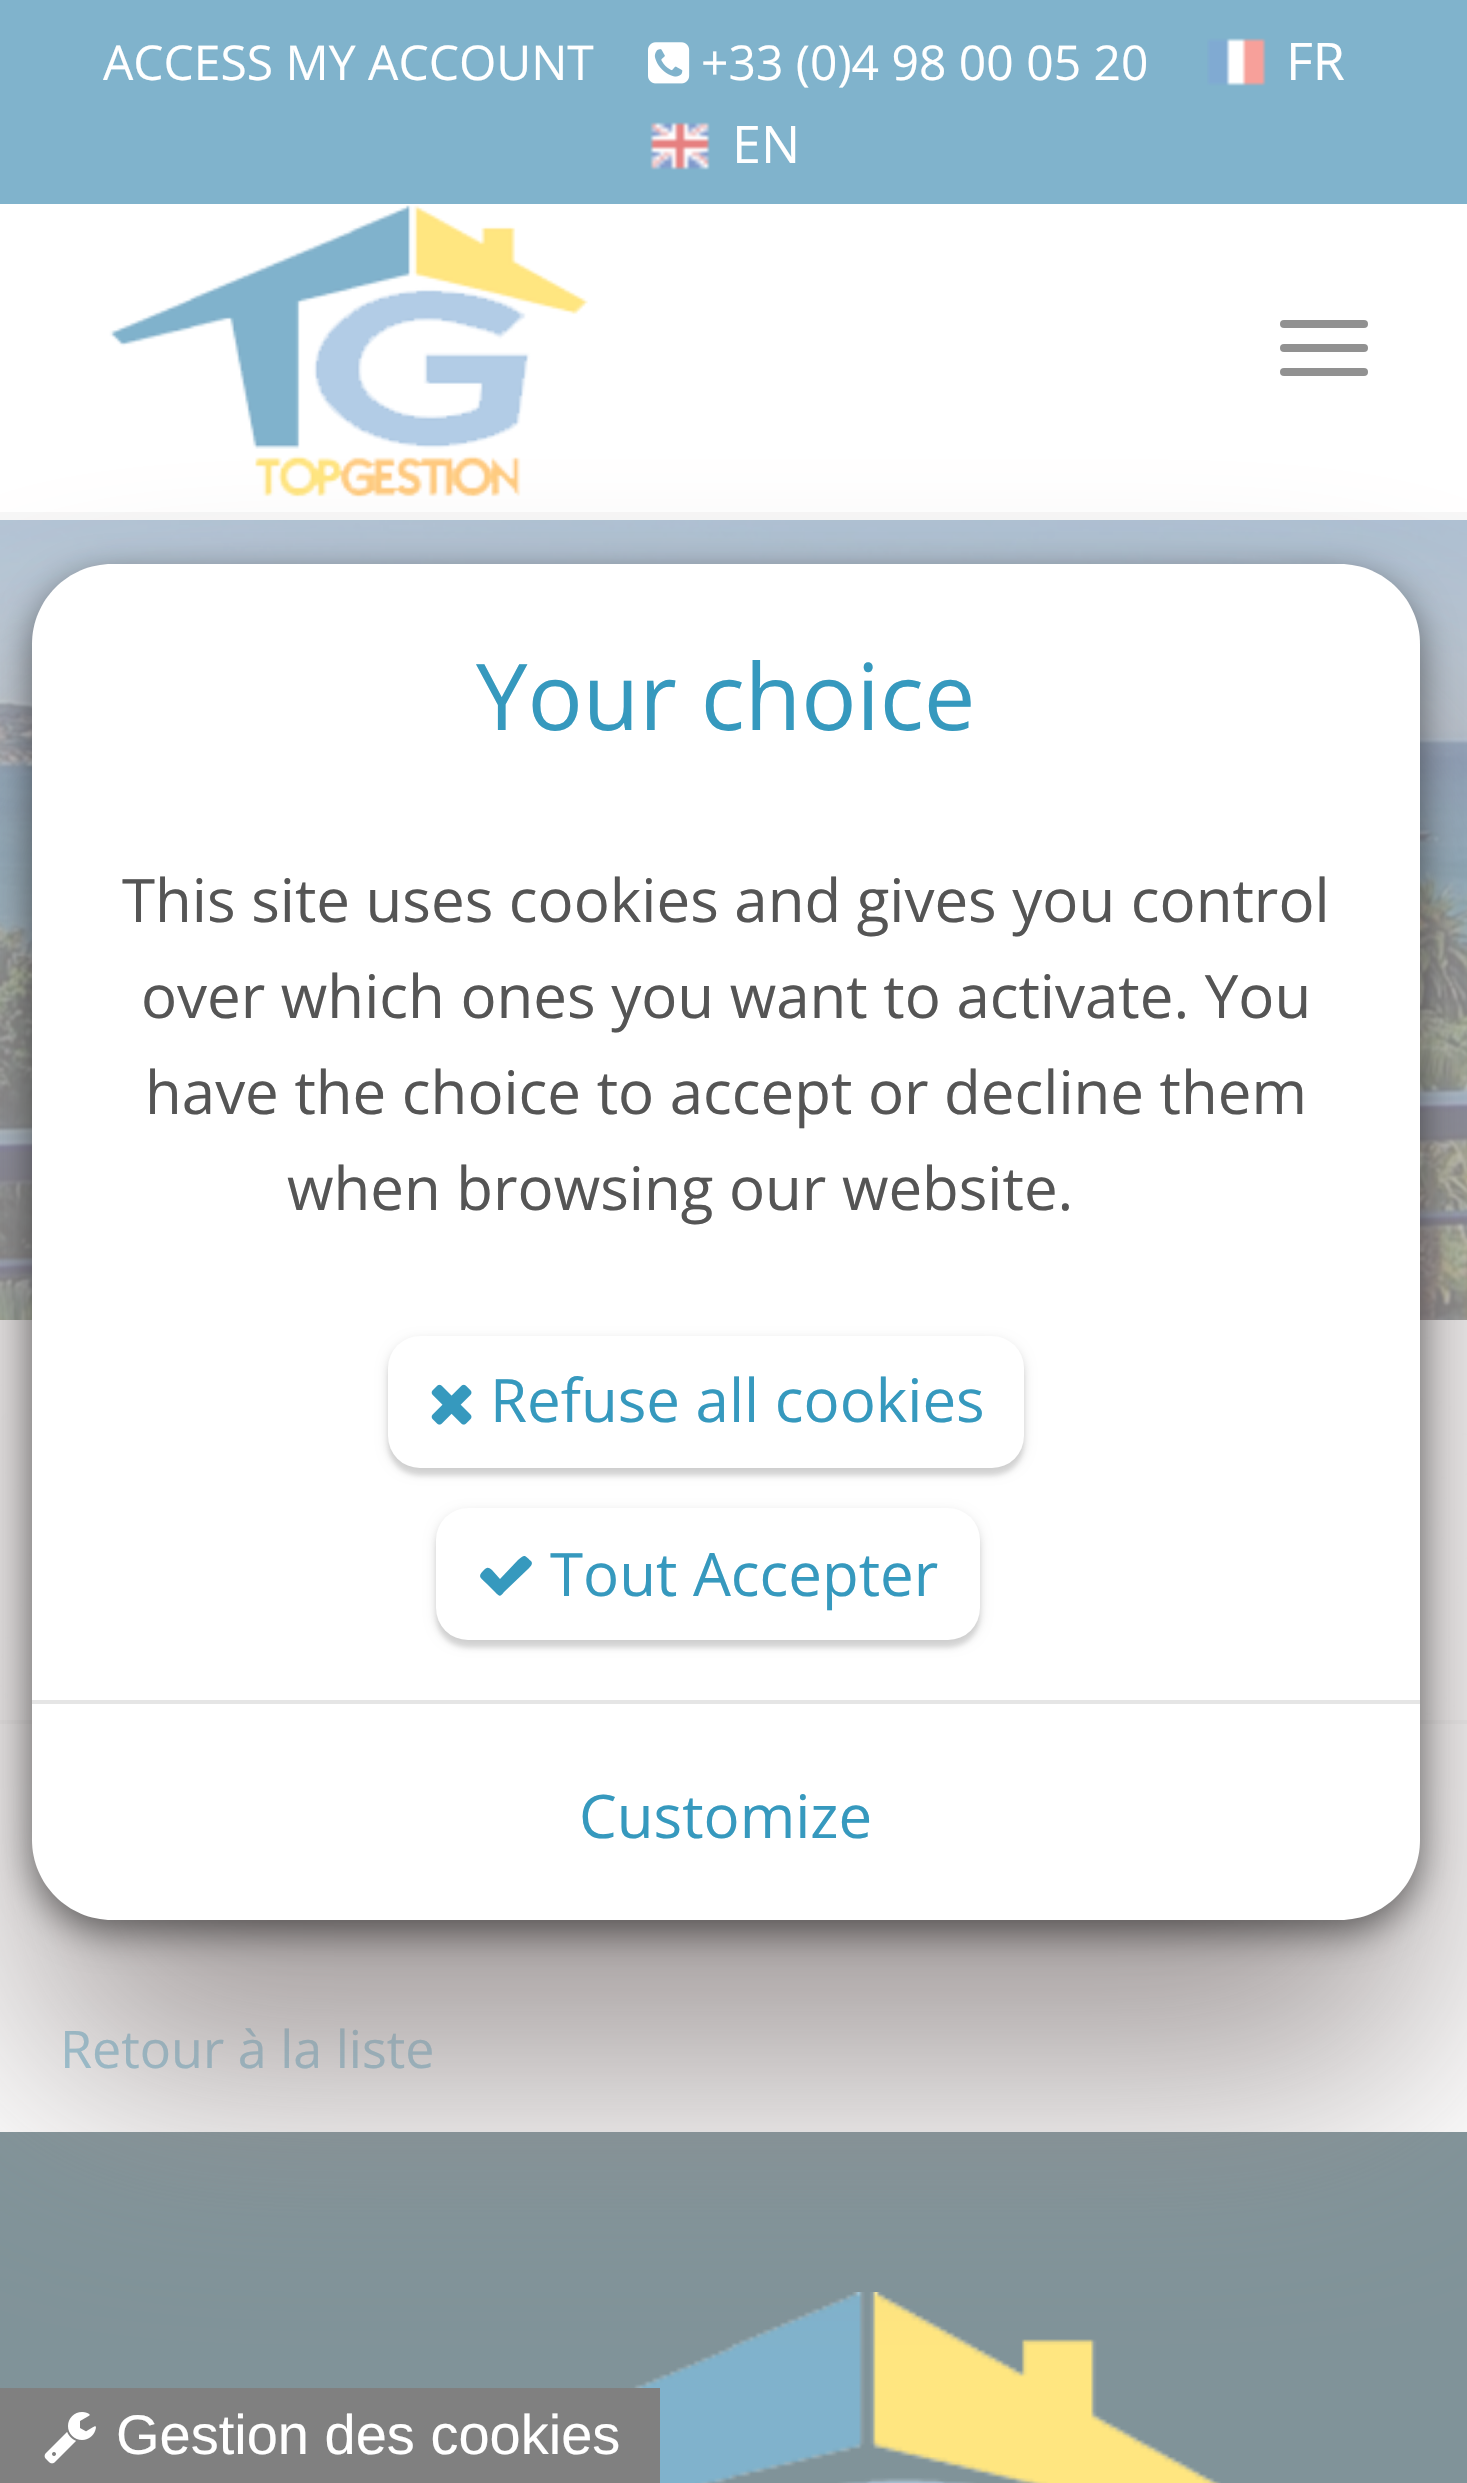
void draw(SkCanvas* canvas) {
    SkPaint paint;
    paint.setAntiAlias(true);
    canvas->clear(0xFFFFFFFF);
    paint.setColor(0xFFF7F7F7);
    canvas->drawRect(SkRect::MakeXYWH(0, 512, 1467, 8), paint);
    paint.setColor(0xFF80B3CC);
    canvas->drawRect(SkRect::MakeXYWH(0, 0, 1467, 204), paint);
    SkFont font1(fontMgr->matchFamilyStyle("Open Sans", SkFontStyle::Normal()), 48);
    font1.setSubpixel(true);
    paint.setColor(0xFFFFFFFF);
    canvas->drawString("ACCESS MY ACCOUNT", 103, 80, font1, paint);
    canvas->drawImageRect(SkImages::DeferredFromEncodedData(SkData::MakeFromFileName("img1.png")), SkRect::MakeXYWH(648, 42, 42, 42), SkSamplingOptions());
    canvas->drawString("+33 (0)4 98 00 05 20", 701, 80, font1, paint);
    canvas->drawImageRect(SkImages::DeferredFromEncodedData(SkData::MakeFromFileName("img2.png")), SkRect::MakeXYWH(1207, 38, 59, 48), SkSamplingOptions());
    SkFont font2(fontMgr->matchFamilyStyle("Open Sans", SkFontStyle::Normal()), 52);
    font2.setSubpixel(true);
    canvas->drawString("FR", 1286, 80, font2, paint);
    canvas->drawImageRect(SkImages::DeferredFromEncodedData(SkData::MakeFromFileName("img3.png")), SkRect::MakeXYWH(650, 122, 60, 48), SkSamplingOptions());
    canvas->drawString("EN", 732, 163, font2, paint);
    canvas->drawImageRect(SkImages::DeferredFromEncodedData(SkData::MakeFromFileName("img4.png")), SkRect::MakeXYWH(109, 205, 479, 294), SkSamplingOptions());
    paint.setColor(0xFF919191);
    canvas->drawRoundRect(SkRect::MakeXYWH(1280, 320, 88, 8), 4, 4, paint);
    canvas->drawRoundRect(SkRect::MakeXYWH(1280, 344, 88, 8), 4, 4, paint);
    canvas->drawRoundRect(SkRect::MakeXYWH(1280, 368, 88, 8), 4, 4, paint);
    canvas->drawImageRect(SkImages::DeferredFromEncodedData(SkData::MakeFromFileName("img5.png")), SkRect::MakeXYWH(0, 520, 1467, 800), SkSamplingOptions());
    canvas->drawImageRect(SkImages::DeferredFromEncodedData(SkData::MakeFromFileName("img6.png")), SkRect::MakeXYWH(0, 1320, 1467, 400), SkSamplingOptions());
    paint.setColor(0xFFF7F7F7);
    canvas->drawRect(SkRect::MakeXYWH(0, 1720, 1467, 4), paint);
    paint.setColor(0xFF9BCCDF);
    canvas->drawString("Retour à la liste", 60, 2068, font2, paint);
    paint.setColor(0xFF809399);
    canvas->drawRect(SkRect::MakeXYWH(0, 2132, 1467, 351), paint);
    canvas->drawImageRect(SkImages::DeferredFromEncodedData(SkData::MakeFromFileName("img7.png")), SkRect::MakeXYWH(630, 2292, 591, 191), SkSamplingOptions());
    paint.setColor(0xFF808080);
    canvas->drawRect(SkRect::MakeXYWH(0, 2388, 660, 95), paint);
    canvas->drawImageRect(SkImages::DeferredFromEncodedData(SkData::MakeFromFileName("img9.png")), SkRect::MakeXYWH(44, 2412, 52, 52), SkSamplingOptions());
    paint.setColor(0xE0958D8D);
    paint.setMaskFilter(SkMaskFilter::MakeBlur(kNormal_SkBlurStyle, 120));
    canvas->drawRoundRect(SkRect::MakeXYWH(32, 724, 1388, 1356), 80, 80, paint);
    paint.setMaskFilter(nullptr);
    paint.setColor(0x80000000);
    paint.setMaskFilter(SkMaskFilter::MakeBlur(kNormal_SkBlurStyle, 18));
    canvas->drawRoundRect(SkRect::MakeXYWH(32, 576, 1388, 1356), 80, 80, paint);
    paint.setMaskFilter(nullptr);
    paint.setColor(0xFFFFFFFF);
    canvas->drawPath(SkPathBuilder().moveTo(112, 564).lineTo(1340, 564).cubicTo(1384, 564, 1420, 600, 1420, 644).lineTo(1420, 1700).lineTo(32, 1700).lineTo(32, 644).cubicTo(32, 600, 68, 564, 112, 564).close().detach(), paint);
    SkFont font3(fontMgr->matchFamilyStyle("Open Sans", SkFontStyle::Normal()), 92);
    font3.setSubpixel(true);
    paint.setColor(0xFF3699BE);
    canvas->drawString("Your choice", 476, 730, font3, paint);
    SkFont font4(fontMgr->matchFamilyStyle("Open Sans", SkFontStyle::Normal()), 60);
    font4.setSubpixel(true);
    paint.setColor(0xFF555555);
    canvas->drawString("This site uses cookies and gives you control", 122, 922, font4, paint);
    canvas->drawString("over which ones you want to activate. You", 141, 1018, font4, paint);
    canvas->drawString("have the choice to accept or decline them", 145, 1114, font4, paint);
    canvas->drawString("when browsing our website.", 287, 1210, font4, paint);
    paint.setColor(0x21000000);
    paint.setMaskFilter(SkMaskFilter::MakeBlur(kNormal_SkBlurStyle, 6));
    canvas->drawRoundRect(SkRect::MakeXYWH(388, 1340, 636, 132), 32, 32, paint);
    paint.setMaskFilter(nullptr);
    paint.setColor(0x1A000000);
    paint.setMaskFilter(SkMaskFilter::MakeBlur(kNormal_SkBlurStyle, 2));
    canvas->drawRoundRect(SkRect::MakeXYWH(388, 1344, 636, 132), 32, 32, paint);
    paint.setMaskFilter(nullptr);
    paint.setColor(0xFFFFFFFF);
    canvas->drawRoundRect(SkRect::MakeXYWH(388, 1336, 636, 132), 32, 32, paint);
    canvas->drawImageRect(SkImages::DeferredFromEncodedData(SkData::MakeFromFileName("img8.png")), SkRect::MakeXYWH(431, 1384, 41, 41), SkSamplingOptions());
    paint.setColor(0xFF3699BE);
    canvas->drawString("Refuse all cookies", 490, 1422, font4, paint);
    paint.setColor(0x21000000);
    paint.setMaskFilter(SkMaskFilter::MakeBlur(kNormal_SkBlurStyle, 6));
    canvas->drawRoundRect(SkRect::MakeXYWH(436, 1512, 544, 132), 32, 32, paint);
    paint.setMaskFilter(nullptr);
    paint.setColor(0x1A000000);
    paint.setMaskFilter(SkMaskFilter::MakeBlur(kNormal_SkBlurStyle, 2));
    canvas->drawRoundRect(SkRect::MakeXYWH(436, 1516, 544, 132), 32, 32, paint);
    paint.setMaskFilter(nullptr);
    paint.setColor(0xFFFFFFFF);
    canvas->drawRoundRect(SkRect::MakeXYWH(436, 1508, 544, 132), 32, 32, paint);
    paint.setColor(0xFF3699BE);
    canvas->drawPath(SkPathBuilder().moveTo(531, 1561).cubicTo(534, 1564, 529, 1568, 527, 1570).lineTo(504, 1592).cubicTo(500, 1597, 500, 1597, 495, 1592).lineTo(487, 1584).cubicTo(481, 1578, 477, 1577, 483, 1571).cubicTo(487, 1567, 488, 1567, 492, 1570).lineTo(500, 1579).lineTo(518, 1560).cubicTo(525, 1554, 524, 1555, 531, 1561).close().detach(), paint);
    canvas->drawString("Tout Accepter", 550, 1596, font4, paint);
    paint.setColor(0xFFFFFFFF);
    canvas->drawPath(SkPathBuilder().moveTo(32, 1700).lineTo(1420, 1700).lineTo(1420, 1840).cubicTo(1420, 1884, 1384, 1920, 1340, 1920).lineTo(112, 1920).cubicTo(68, 1920, 32, 1884, 32, 1840).close().detach(), paint);
    paint.setColor(0xFFE5E5E5);
    canvas->drawRect(SkRect::MakeXYWH(32, 1700, 1388, 4), paint);
    paint.setColor(0xFF3699BE);
    canvas->drawString("Customize", 579, 1838, font4, paint);
    SkFont font5(fontMgr->matchFamilyStyle("Liberation Sans", SkFontStyle::Normal()), 56);
    font5.setSubpixel(true);
    paint.setColor(0xFFFFFFFF);
    canvas->drawString("Gestion des cookies", 116, 2454, font5, paint);
}
